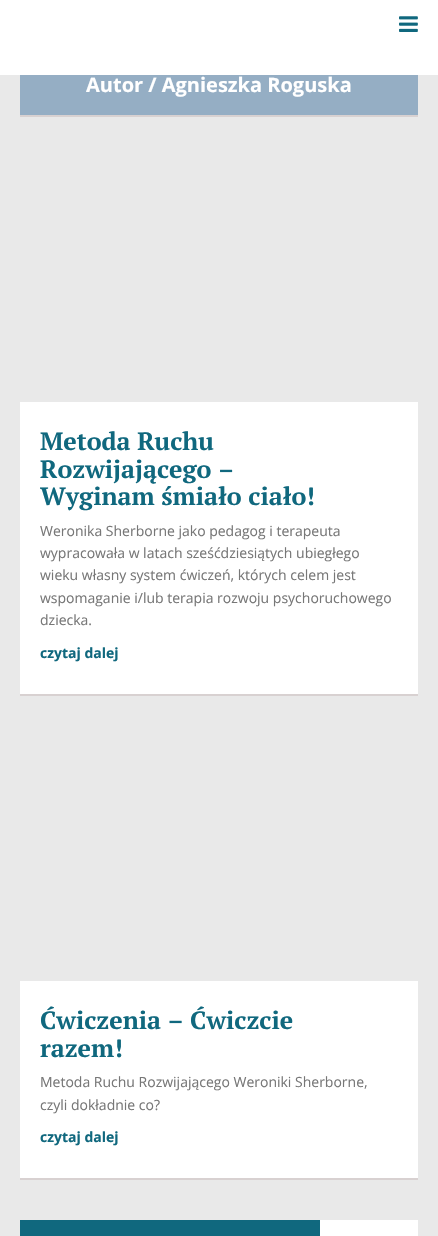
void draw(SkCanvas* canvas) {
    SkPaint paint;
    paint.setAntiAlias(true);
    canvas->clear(0xFFE9E9E9);
    paint.setColor(0xFFFFFFFF);
    canvas->drawRect(SkRect::MakeXYWH(0, 0, 438, 75), paint);
    canvas->drawImageRect(SkImages::DeferredFromEncodedData(SkData::MakeFromFileName("img1.png")), SkRect::MakeXYWH(399, 16, 19, 16), SkSamplingOptions());
    paint.setColor(0xFF95AEC4);
    canvas->drawRect(SkRect::MakeXYWH(20, 75, 398, 40), paint);
    SkFont font1(fontMgr->matchFamilyStyle("Open Sans", SkFontStyle::Bold()), 20);
    font1.setSubpixel(true);
    paint.setColor(0xFFFFFFFF);
    canvas->drawString("Autor / Agnieszka Roguska", 86, 92, font1, paint);
    paint.setColor(0xFFD8D1D1);
    canvas->drawRect(SkRect::MakeXYWH(20, 115, 398, 2), paint);
    paint.setColor(0xFFFFFFFF);
    canvas->drawRect(SkRect::MakeXYWH(20, 402, 398, 292), paint);
    SkFont font2(fontMgr->matchFamilyStyle("PT Serif", SkFontStyle::Bold()), 25);
    font2.setSubpixel(true);
    paint.setColor(0xFF10687E);
    canvas->drawString("Metoda Ruchu", 40, 450, font2, paint);
    canvas->drawString("Rozwijającego –", 40, 478, font2, paint);
    canvas->drawString("Wyginam śmiało ciało!", 40, 505, font2, paint);
    SkFont font3(fontMgr->matchFamilyStyle("Open Sans", SkFontStyle::Normal()), 14);
    font3.setSubpixel(true);
    paint.setColor(0xFF777777);
    canvas->drawString("Weronika Sherborne jako pedagog i terapeuta", 40, 536, font3, paint);
    canvas->drawString("wypracowała w latach sześćdziesiątych ubiegłego", 40, 558, font3, paint);
    canvas->drawString("wieku własny system ćwiczeń, których celem jest", 40, 580, font3, paint);
    canvas->drawString("wspomaganie i/lub terapia rozwoju psychoruchowego", 40, 603, font3, paint);
    canvas->drawString("dziecka.", 40, 625, font3, paint);
    SkFont font4(fontMgr->matchFamilyStyle("Open Sans", SkFontStyle::Bold()), 14);
    font4.setSubpixel(true);
    paint.setColor(0xFF10687E);
    canvas->drawString("czytaj dalej", 40, 658, font4, paint);
    paint.setColor(0xFFD8D1D1);
    canvas->drawRect(SkRect::MakeXYWH(20, 694, 398, 2), paint);
    paint.setColor(0xFFFFFFFF);
    canvas->drawRect(SkRect::MakeXYWH(20, 981, 398, 197), paint);
    paint.setColor(0xFF10687E);
    canvas->drawString("Ćwiczenia – Ćwiczcie", 40, 1029, font2, paint);
    canvas->drawString("razem!", 40, 1057, font2, paint);
    paint.setColor(0xFF777777);
    canvas->drawString("Metoda Ruchu Rozwijającego Weroniki Sherborne,", 40, 1087, font3, paint);
    canvas->drawString("czyli dokładnie co?", 40, 1110, font3, paint);
    paint.setColor(0xFF10687E);
    canvas->drawString("czytaj dalej", 40, 1142, font4, paint);
    paint.setColor(0xFFD8D1D1);
    canvas->drawRect(SkRect::MakeXYWH(20, 1178, 398, 2), paint);
    paint.setColor(0xFFFFFFFF);
    canvas->drawRect(SkRect::MakeXYWH(320, 1220, 98, 16), paint);
    paint.setColor(0xFF10687E);
    canvas->drawRect(SkRect::MakeXYWH(20, 1220, 300, 16), paint);
}
